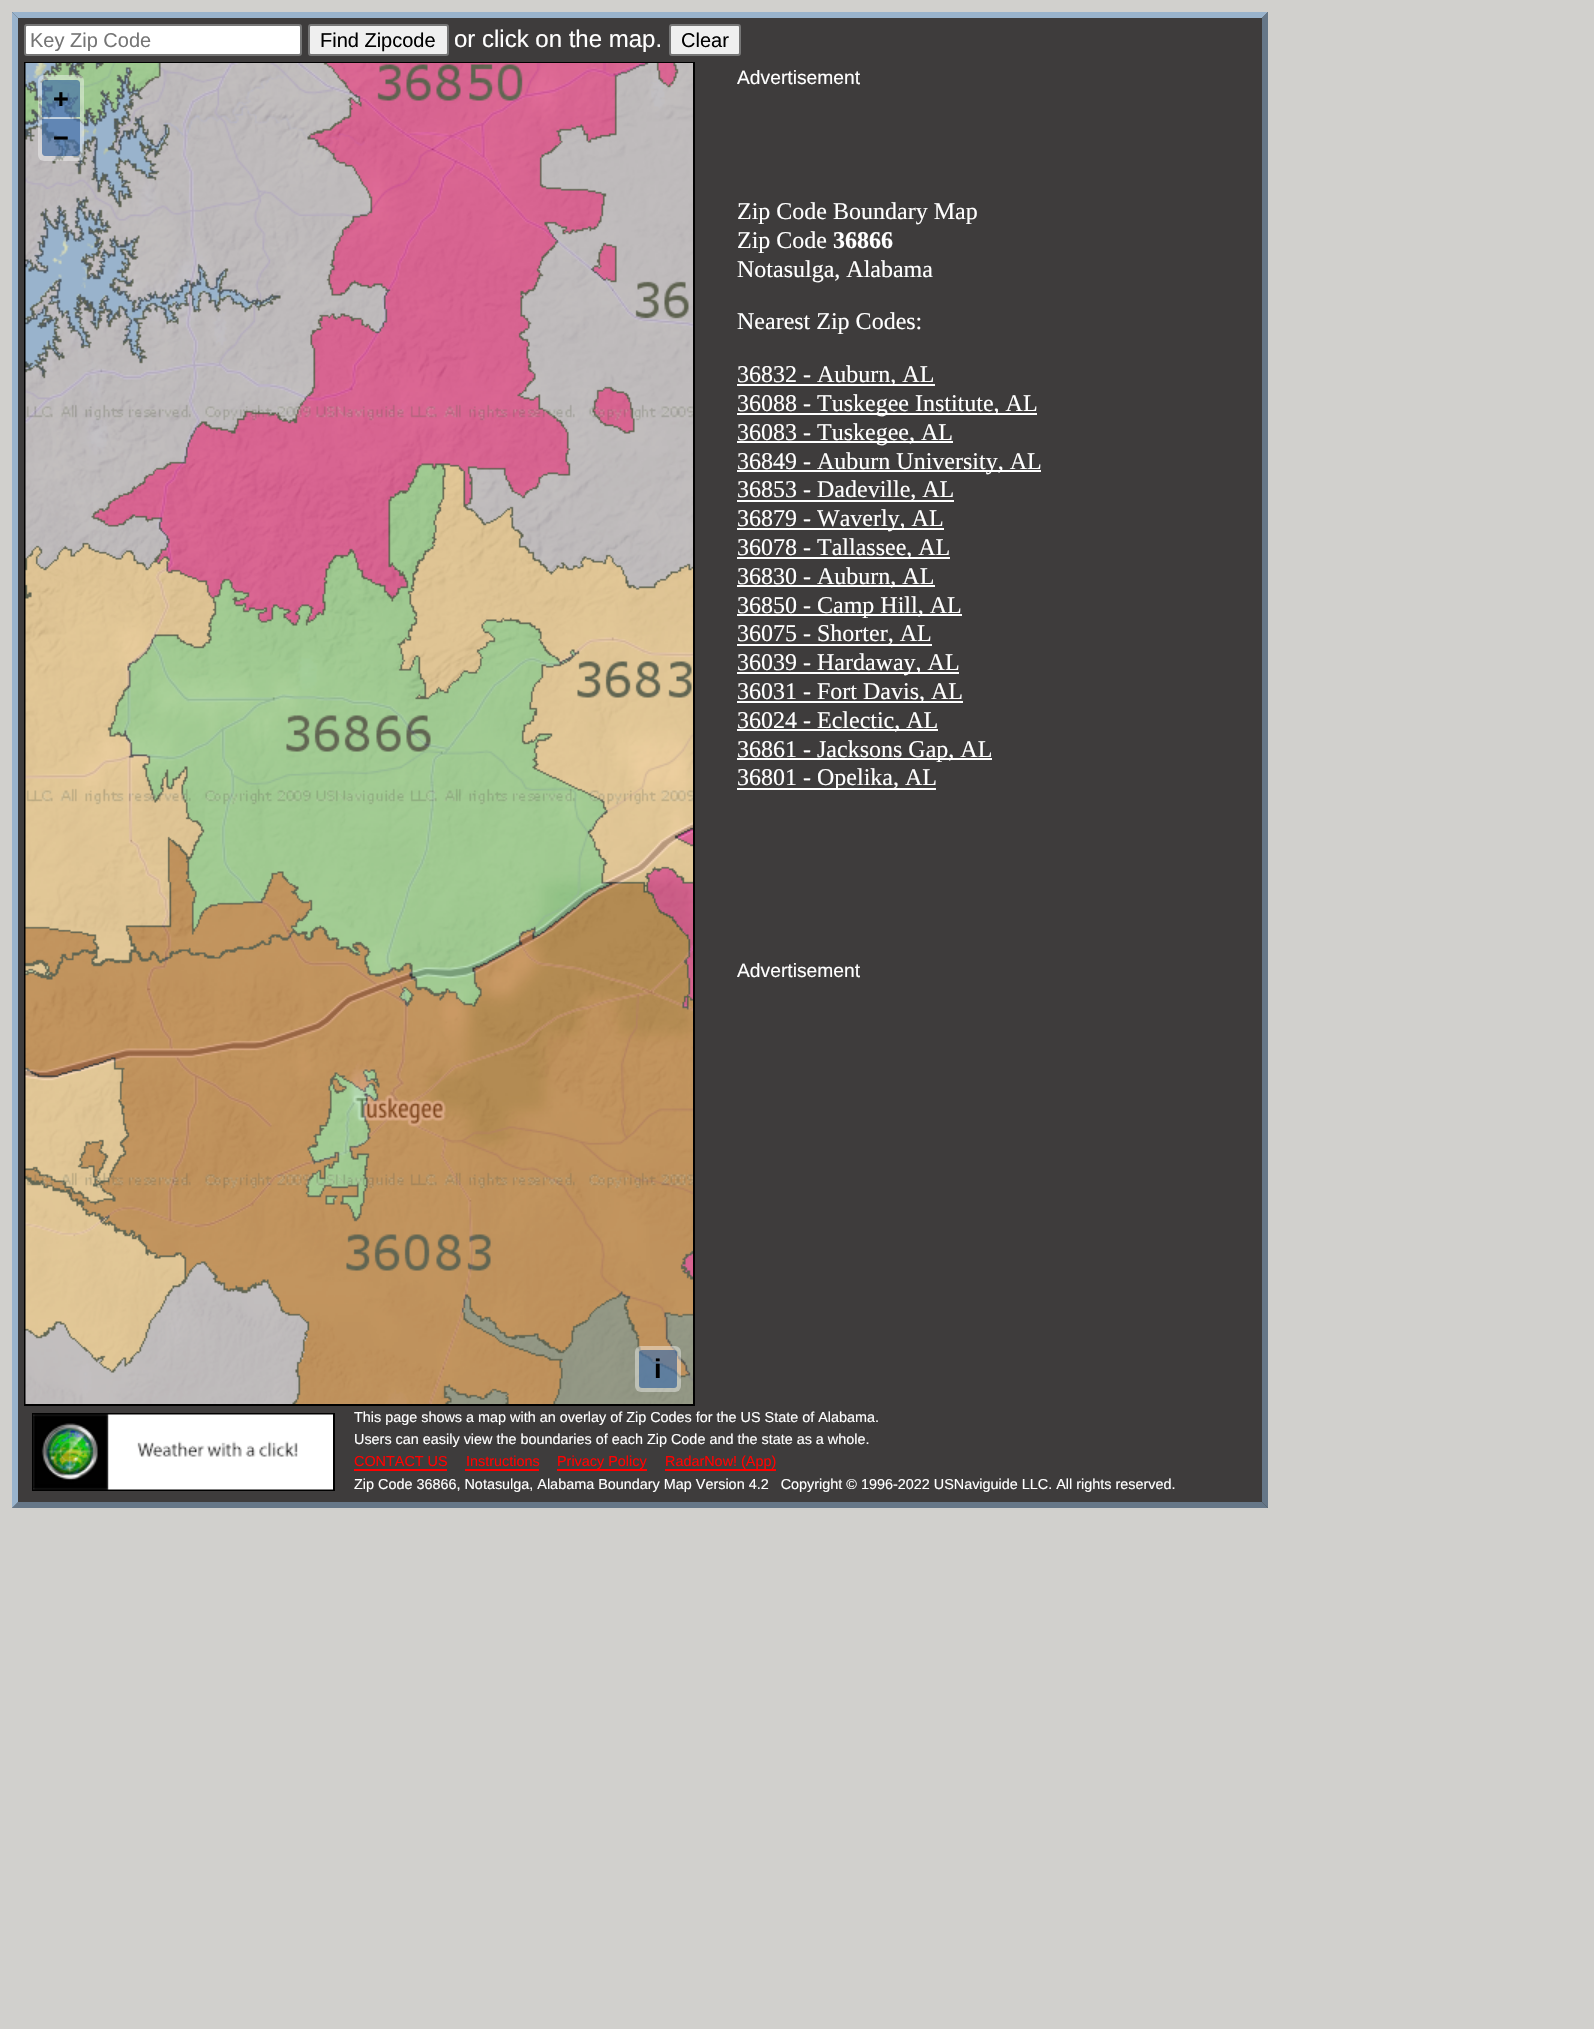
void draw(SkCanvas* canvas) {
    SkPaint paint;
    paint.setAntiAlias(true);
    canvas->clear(0xFFD1D0CD);
    paint.setColor(0xFF3E3C3C);
    canvas->drawRect(SkRect::MakeXYWH(12, 12, 1256, 1496), paint);
    paint.setColor(0xFF99B3CC);
    canvas->drawPath(SkPathBuilder().moveTo(12, 12).lineTo(1268, 12).lineTo(1262, 18).lineTo(18, 18).close().detach(), paint);
    paint.setColor(0xFF667788);
    canvas->drawPath(SkPathBuilder().moveTo(1268, 12).lineTo(1268, 1508).lineTo(1262, 1502).lineTo(1262, 18).close().detach(), paint);
    canvas->drawPath(SkPathBuilder().moveTo(1268, 1508).lineTo(12, 1508).lineTo(18, 1502).lineTo(1262, 1502).close().detach(), paint);
    paint.setColor(0xFF99B3CC);
    canvas->drawPath(SkPathBuilder().moveTo(12, 1508).lineTo(12, 12).lineTo(18, 18).lineTo(18, 1502).close().detach(), paint);
    paint.setColor(0xFFFFFFFF);
    canvas->drawRoundRect(SkRect::MakeXYWH(25, 25, 276, 30), 2, 2, paint);
    paint.setStyle(SkPaint::kStroke_Style);
    paint.setStrokeWidth(2);
    paint.setColor(0xFF767676);
    canvas->drawRoundRect(SkRect::MakeXYWH(25, 25, 276, 30), 2, 2, paint);
    canvas->save();
    canvas->clipRect(SkRect::MakeXYWH(30, 29, 266, 22));
    SkFont font1(fontMgr->matchFamilyStyle("Liberation Sans", SkFontStyle::Normal()), 20);
    font1.setSubpixel(true);
    paint.setStyle(SkPaint::kFill_Style);
    paint.setColor(0xFF757575);
    canvas->drawString("Key Zip Code", 30, 47, font1, paint);
    canvas->restore();
    paint.setColor(0xFFEFEFEF);
    canvas->drawRoundRect(SkRect::MakeXYWH(309, 25, 139, 30), 2, 2, paint);
    paint.setStyle(SkPaint::kStroke_Style);
    paint.setColor(0xFF767676);
    canvas->drawRoundRect(SkRect::MakeXYWH(309, 25, 139, 30), 2, 2, paint);
    paint.setStyle(SkPaint::kFill_Style);
    paint.setColor(0xFF000000);
    canvas->drawString("Find Zipcode", 320, 47, font1, paint);
    SkFont font2(fontMgr->matchFamilyStyle("Liberation Sans", SkFontStyle::Normal()), 24);
    font2.setSubpixel(true);
    paint.setColor(0xFFFFFFFF);
    canvas->drawString("or click on the map.", 454, 47, font2, paint);
    paint.setColor(0xFFEFEFEF);
    canvas->drawRoundRect(SkRect::MakeXYWH(670, 25, 70, 30), 2, 2, paint);
    paint.setStyle(SkPaint::kStroke_Style);
    paint.setColor(0xFF767676);
    canvas->drawRoundRect(SkRect::MakeXYWH(670, 25, 70, 30), 2, 2, paint);
    paint.setStyle(SkPaint::kFill_Style);
    paint.setColor(0xFF000000);
    canvas->drawString("Clear", 681, 47, font1, paint);
    paint.setStyle(SkPaint::kStroke_Style);
    canvas->drawRect(SkRect::MakeXYWH(25, 63, 669, 1342), paint);
    canvas->drawImageRect(SkImages::DeferredFromEncodedData(SkData::MakeFromFileName("img1.png")), SkRect::MakeXYWH(25, 63, 668, 1341), SkSamplingOptions());
    paint.setStyle(SkPaint::kFill_Style);
    paint.setColor(0x66FFFFFF);
    canvas->drawRoundRect(SkRect::MakeXYWH(38, 75, 46, 86), 6, 6, paint);
    paint.setColor(0x80003C88);
    canvas->drawPath(SkPathBuilder().moveTo(45, 80).lineTo(77, 80).cubicTo(78.5f, 80, 80, 81.5f, 80, 83).lineTo(80, 117).lineTo(42, 117).lineTo(42, 83).cubicTo(42, 81.5f, 43.5f, 80, 45, 80).close().detach(), paint);
    SkFont font3(fontMgr->matchFamilyStyle("Liberation Sans", SkFontStyle::Bold()), 27);
    font3.setSubpixel(true);
    paint.setColor(0xFF000000);
    canvas->drawString("+", 53, 108, font3, paint);
    paint.setColor(0x80003C88);
    canvas->drawPath(SkPathBuilder().moveTo(42, 119).lineTo(80, 119).lineTo(80, 153).cubicTo(80, 154.5f, 78.5f, 156, 77, 156).lineTo(45, 156).cubicTo(43.5f, 156, 42, 154.5f, 42, 153).close().detach(), paint);
    paint.setColor(0xFF000000);
    canvas->drawString("−", 53, 147, font3, paint);
    paint.setColor(0x66FFFFFF);
    canvas->drawRoundRect(SkRect::MakeXYWH(635, 1346, 46, 46), 6, 6, paint);
    paint.setColor(0x80003C88);
    canvas->drawRoundRect(SkRect::MakeXYWH(639, 1350, 38, 38), 3, 3, paint);
    paint.setColor(0xFF000000);
    canvas->drawString("i", 654, 1378, font3, paint);
    SkFont font4(fontMgr->matchFamilyStyle("Liberation Sans", SkFontStyle::Normal()), 19.25f);
    font4.setSubpixel(true);
    paint.setColor(0xFFFFFFFF);
    canvas->drawString("Advertisement", 737, 84, font4, paint);
    SkFont font5(fontMgr->matchFamilyStyle("Liberation Serif", SkFontStyle::Normal()), 24);
    font5.setSubpixel(true);
    canvas->drawString("Zip Code Boundary Map", 737, 219, font5, paint);
    canvas->drawString("Zip Code", 737, 248, font5, paint);
    SkFont font6(fontMgr->matchFamilyStyle("Liberation Serif", SkFontStyle::Bold()), 24);
    font6.setSubpixel(true);
    canvas->drawString("36866", 833, 248, font6, paint);
    canvas->drawString("Notasulga, Alabama", 737, 277, font5, paint);
    canvas->drawString("Nearest Zip Codes:", 737, 329, font5, paint);
    canvas->drawRect(SkRect::MakeXYWH(737, 384, 198, 2), paint);
    canvas->drawString("36832 - Auburn, AL", 737, 382, font5, paint);
    canvas->drawRect(SkRect::MakeXYWH(737, 413, 300, 2), paint);
    canvas->drawString("36088 - Tuskegee Institute, AL", 737, 411, font5, paint);
    canvas->drawRect(SkRect::MakeXYWH(737, 441, 216, 2), paint);
    canvas->drawString("36083 - Tuskegee, AL", 737, 440, font5, paint);
    canvas->drawRect(SkRect::MakeXYWH(737, 470, 304, 2), paint);
    canvas->drawString("36849 - Auburn University, AL", 737, 469, font5, paint);
    canvas->drawRect(SkRect::MakeXYWH(737, 500, 217, 2), paint);
    canvas->drawString("36853 - Dadeville, AL", 737, 497, font5, paint);
    canvas->drawRect(SkRect::MakeXYWH(737, 528, 207, 2), paint);
    canvas->drawString("36879 - Waverly, AL", 737, 526, font5, paint);
    canvas->drawRect(SkRect::MakeXYWH(737, 557, 213, 2), paint);
    canvas->drawString("36078 - Tallassee, AL", 737, 555, font5, paint);
    canvas->drawRect(SkRect::MakeXYWH(737, 585, 198, 2), paint);
    canvas->drawString("36830 - Auburn, AL", 737, 584, font5, paint);
    canvas->drawRect(SkRect::MakeXYWH(737, 614, 225, 2), paint);
    canvas->drawString("36850 - Camp Hill, AL", 737, 613, font5, paint);
    canvas->drawRect(SkRect::MakeXYWH(737, 644, 195, 2), paint);
    canvas->drawString("36075 - Shorter, AL", 737, 641, font5, paint);
    canvas->drawRect(SkRect::MakeXYWH(737, 672, 222, 2), paint);
    canvas->drawString("36039 - Hardaway, AL", 737, 670, font5, paint);
    canvas->drawRect(SkRect::MakeXYWH(737, 701, 226, 2), paint);
    canvas->drawString("36031 - Fort Davis, AL", 737, 699, font5, paint);
    canvas->drawRect(SkRect::MakeXYWH(737, 729, 201, 2), paint);
    canvas->drawString("36024 - Eclectic, AL", 737, 728, font5, paint);
    canvas->drawRect(SkRect::MakeXYWH(737, 758, 255, 2), paint);
    canvas->drawString("36861 - Jacksons Gap, AL", 737, 757, font5, paint);
    canvas->drawRect(SkRect::MakeXYWH(737, 788, 199, 2), paint);
    canvas->drawString("36801 - Opelika, AL", 737, 785, font5, paint);
    canvas->drawString("Advertisement", 737, 977, font4, paint);
    paint.setStyle(SkPaint::kStroke_Style);
    paint.setColor(0xFF000000);
    canvas->drawRect(SkRect::MakeXYWH(33, 1414, 301, 76), paint);
    canvas->drawImageRect(SkImages::DeferredFromEncodedData(SkData::MakeFromFileName("img2.png")), SkRect::MakeXYWH(33, 1414, 300, 76), SkSamplingOptions());
    SkFont font7(fontMgr->matchFamilyStyle("Liberation Sans", SkFontStyle::Normal()), 14.4f);
    font7.setSubpixel(true);
    paint.setStyle(SkPaint::kFill_Style);
    paint.setColor(0xFFFFFFFF);
    canvas->drawString("This page shows a map with an overlay of Zip Codes for the US State of Alabama.", 354, 1422, font7, paint);
    canvas->drawString("Users can easily view the boundaries of each Zip Code and the state as a whole.", 354, 1444, font7, paint);
    paint.setColor(0xFFFF0000);
    canvas->drawString("CONTACT US", 354, 1466, font7, paint);
    canvas->drawRect(SkRect::MakeXYWH(354, 1469, 93, 2), paint);
    canvas->drawString("Instructions", 466, 1466, font7, paint);
    canvas->drawRect(SkRect::MakeXYWH(465, 1469, 74, 2), paint);
    canvas->drawString("Privacy Policy", 557, 1466, font7, paint);
    canvas->drawRect(SkRect::MakeXYWH(557, 1469, 90, 2), paint);
    canvas->drawString("RadarNow! (App)", 665, 1466, font7, paint);
    canvas->drawRect(SkRect::MakeXYWH(665, 1469, 111, 2), paint);
    paint.setColor(0xFFFFFFFF);
    canvas->drawString("Zip Code 36866, Notasulga, Alabama Boundary Map Version 4.2   Copyright © 1996-2022 USNaviguide LLC. All rights reserved.", 354, 1489, font7, paint);
}
